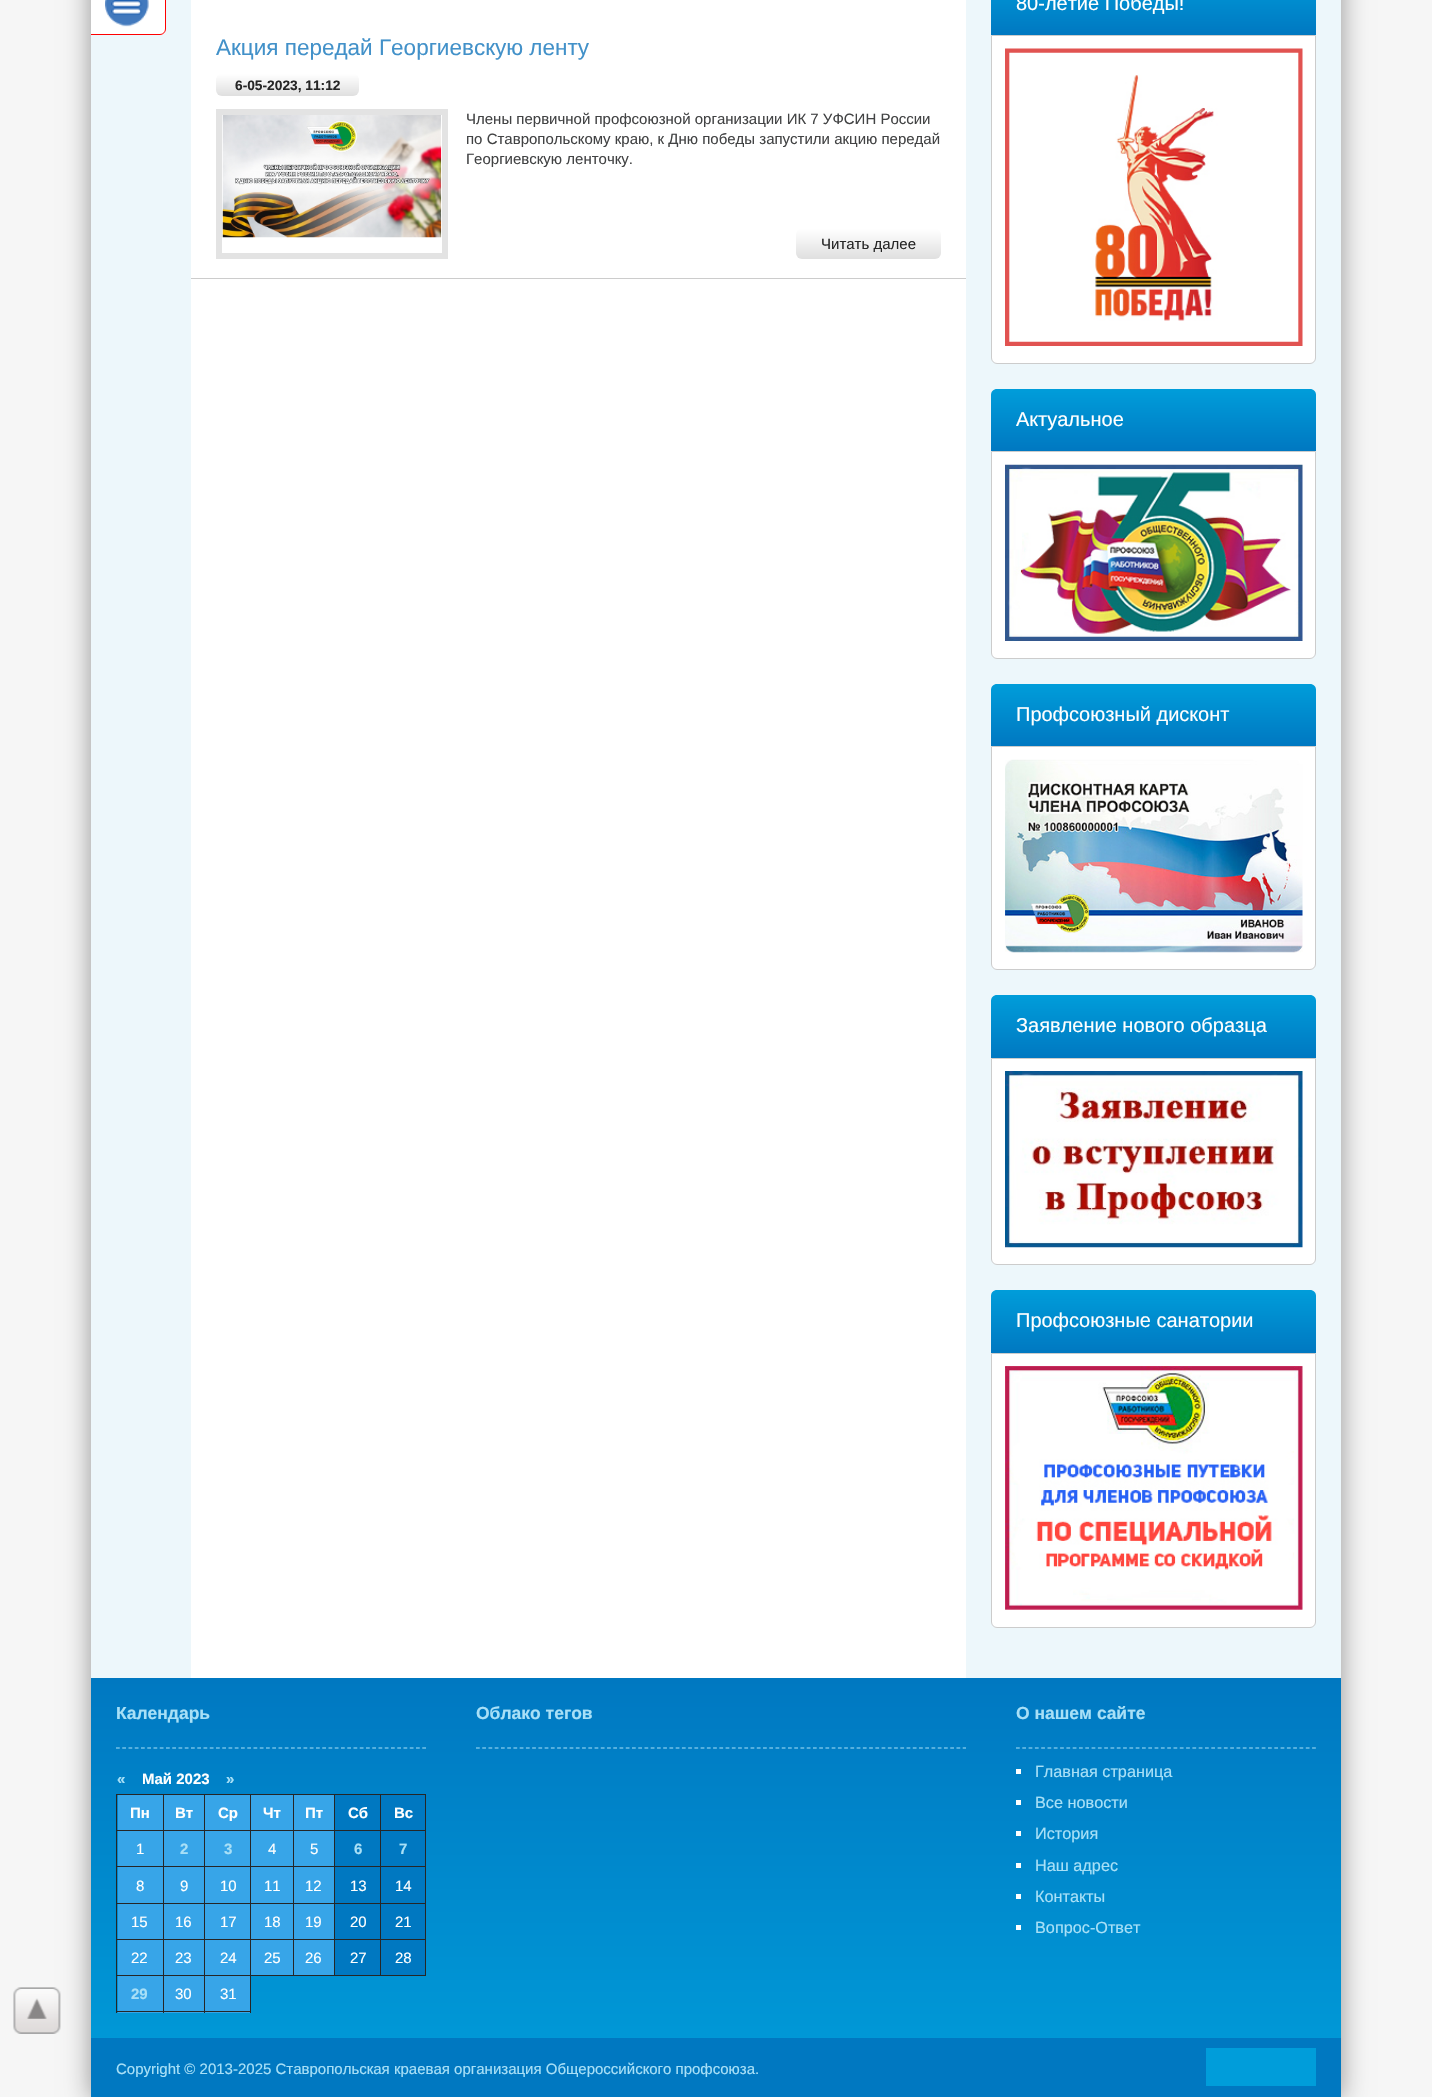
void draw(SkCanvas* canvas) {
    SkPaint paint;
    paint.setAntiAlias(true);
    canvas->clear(0xFFF6F6F6);
    paint.setColor(0x66000000);
    paint.setMaskFilter(SkMaskFilter::MakeBlur(kNormal_SkBlurStyle, 12.5f));
    canvas->drawRect(SkRect::MakeXYWH(91, -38, 1250, 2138), paint);
    paint.setMaskFilter(nullptr);
    canvas->drawImageRect(SkImages::DeferredFromEncodedData(SkData::MakeFromFileName("img1.png")), SkRect::MakeXYWH(13, 1987, 48, 47), SkSamplingOptions());
    paint.setColor(0xFFFFFFFF);
    canvas->drawRect(SkRect::MakeXYWH(191, 0, 775, 1678), paint);
    paint.setColor(0xFFEDF7FB);
    canvas->drawRect(SkRect::MakeXYWH(91, 0, 100, 1678), paint);
    canvas->drawRect(SkRect::MakeXYWH(966, 0, 375, 1678), paint);
    paint.setColor(0xFFFFFFFF);
    canvas->drawPath(SkPathBuilder().moveTo(91, -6).lineTo(160, -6).cubicTo(163.5f, -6, 166, -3.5f, 166, 0).lineTo(166, 29).cubicTo(166, 32.5f, 163.5f, 35, 160, 35).lineTo(91, 35).close().detach(), paint);
    canvas->drawImageRect(SkImages::DeferredFromEncodedData(SkData::MakeFromFileName("img2.png")), SkRect::MakeXYWH(105, 0, 44, 27), SkSamplingOptions());
    canvas->save();
    canvas->clipRect(SkRect::MakeXYWH(91, 0, 875, 705));
    paint.setStyle(SkPaint::kStroke_Style);
    paint.setStrokeWidth(1);
    paint.setColor(0xFFFF0000);
    canvas->drawRoundRect(SkRect::MakeXYWH(-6.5f, -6.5f, 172, 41), 5.5f, 5.5f, paint);
    canvas->restore();
    paint.setStyle(SkPaint::kFill_Style);
    paint.setColor(0xFFCCCCCC);
    canvas->drawRect(SkRect::MakeXYWH(191, 278, 775, 1), paint);
    SkFont font1(fontMgr->matchFamilyStyle("Liberation Sans", SkFontStyle::Normal()), 22.5f);
    font1.setSubpixel(true);
    paint.setColor(0xFF4291C9);
    canvas->drawString("Акция передай Георгиевскую ленту", 216, 55, font1, paint);
    {
        const SkColor colors[] = {0xFFFFFFFF, 0xFFDFDFDF};
        const float stops[] = {0, 1};
        const SkPoint ends[] = {{288, 74}, {288, 96}};
        paint.setShader(SkGradientShader::MakeLinear(ends, colors, stops, 2, SkTileMode::kClamp));
        paint.setAlpha(255);
    }
    canvas->drawRoundRect(SkRect::MakeXYWH(216, 74, 143, 22), 6, 6, paint);
    SkFont font2(fontMgr->matchFamilyStyle("Liberation Sans", SkFontStyle::Bold()), 13.75f);
    font2.setSubpixel(true);
    paint.setShader(nullptr);
    paint.setColor(0xFF262626);
    canvas->drawString("6-05-2023, 11:12", 235, 90, font2, paint);
    paint.setStyle(SkPaint::kStroke_Style);
    paint.setStrokeWidth(6);
    paint.setColor(0xFFE3E3E3);
    canvas->drawRect(SkRect::MakeXYWH(219, 112, 226, 144), paint);
    canvas->drawImageRect(SkImages::DeferredFromEncodedData(SkData::MakeFromFileName("img3.png")), SkRect::MakeXYWH(222, 115, 220, 123), SkSamplingOptions());
    SkFont font3(fontMgr->matchFamilyStyle("Liberation Sans", SkFontStyle::Normal()), 15);
    font3.setSubpixel(true);
    paint.setStyle(SkPaint::kFill_Style);
    paint.setColor(0xFF424344);
    canvas->drawString("Члены первичной профсоюзной организации ИК 7 УФСИН России", 466, 124, font3, paint);
    canvas->drawString("по Ставропольскому краю, к Дню победы запустили акцию передай", 466, 144, font3, paint);
    canvas->drawString("Георгиевскую ленточку.", 466, 164, font3, paint);
    {
        const SkColor colors[] = {0xFFFFFFFF, 0xFFDFDFDF};
        const float stops[] = {0, 1};
        const SkPoint ends[] = {{869, 229}, {869, 259}};
        paint.setShader(SkGradientShader::MakeLinear(ends, colors, stops, 2, SkTileMode::kClamp));
        paint.setAlpha(255);
    }
    canvas->drawRoundRect(SkRect::MakeXYWH(796, 229, 145, 30), 6, 6, paint);
    paint.setShader(nullptr);
    paint.setColor(0xFF262626);
    canvas->drawString("Читать далее", 821, 249, font3, paint);
    {
        const SkColor colors[] = {0xFF009DDA, 0xFF0078C1};
        const float stops[] = {0, 1};
        const SkPoint ends[] = {{1154, -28}, {1154, 35}};
        paint.setShader(SkGradientShader::MakeLinear(ends, colors, stops, 2, SkTileMode::kClamp));
        paint.setAlpha(255);
    }
    canvas->drawRect(SkRect::MakeXYWH(991, 0, 325, 35), paint);
    SkFont font4(fontMgr->matchFamilyStyle("Liberation Sans", SkFontStyle::Normal()), 20);
    font4.setSubpixel(true);
    paint.setShader(nullptr);
    paint.setColor(0xFFFFFFFF);
    canvas->drawString("80-летие Победы!", 1016, 10, font4, paint);
    canvas->drawPath(SkPathBuilder().moveTo(991.5f, 35.5f).lineTo(1315.5f, 35.5f).lineTo(1315.5f, 358).cubicTo(1315.5f, 361, 1313, 363.5f, 1310, 363.5f).lineTo(997, 363.5f).cubicTo(994, 363.5f, 991.5f, 361, 991.5f, 358).close().detach(), paint);
    paint.setStyle(SkPaint::kStroke_Style);
    paint.setStrokeWidth(1);
    paint.setColor(0xFFCCCCCC);
    canvas->drawPath(SkPathBuilder().moveTo(991.5f, 35.5f).lineTo(1315.5f, 35.5f).lineTo(1315.5f, 358).cubicTo(1315.5f, 361, 1313, 363.5f, 1310, 363.5f).lineTo(997, 363.5f).cubicTo(994, 363.5f, 991.5f, 361, 991.5f, 358).close().detach(), paint);
    canvas->drawImageRect(SkImages::DeferredFromEncodedData(SkData::MakeFromFileName("img4.png")), SkRect::MakeXYWH(1005, 48, 298, 298), SkSamplingOptions());
    paint.setStyle(SkPaint::kFill_Style);
    {
        const SkColor colors[] = {0xFF009DDA, 0xFF0078C1};
        const float stops[] = {0, 1};
        const SkPoint ends[] = {{1154, 389}, {1154, 451}};
        paint.setShader(SkGradientShader::MakeLinear(ends, colors, stops, 2, SkTileMode::kClamp));
        paint.setAlpha(255);
    }
    canvas->drawPath(SkPathBuilder().moveTo(997, 389).lineTo(1310, 389).cubicTo(1313.5f, 389, 1316, 391.5f, 1316, 395).lineTo(1316, 451).lineTo(991, 451).lineTo(991, 395).cubicTo(991, 391.5f, 993.5f, 389, 997, 389).close().detach(), paint);
    paint.setShader(nullptr);
    paint.setColor(0xFFFFFFFF);
    canvas->drawString("Актуальное", 1016, 426, font4, paint);
    canvas->drawPath(SkPathBuilder().moveTo(991.5f, 451.5f).lineTo(1315.5f, 451.5f).lineTo(1315.5f, 653).cubicTo(1315.5f, 656, 1313, 658.5f, 1310, 658.5f).lineTo(997, 658.5f).cubicTo(994, 658.5f, 991.5f, 656, 991.5f, 653).close().detach(), paint);
    paint.setStyle(SkPaint::kStroke_Style);
    paint.setColor(0xFFCCCCCC);
    canvas->drawPath(SkPathBuilder().moveTo(991.5f, 451.5f).lineTo(1315.5f, 451.5f).lineTo(1315.5f, 653).cubicTo(1315.5f, 656, 1313, 658.5f, 1310, 658.5f).lineTo(997, 658.5f).cubicTo(994, 658.5f, 991.5f, 656, 991.5f, 653).close().detach(), paint);
    canvas->drawImageRect(SkImages::DeferredFromEncodedData(SkData::MakeFromFileName("img5.png")), SkRect::MakeXYWH(1005, 464, 298, 177), SkSamplingOptions());
    paint.setStyle(SkPaint::kFill_Style);
    {
        const SkColor colors[] = {0xFF009DDA, 0xFF0078C1};
        const float stops[] = {0, 1};
        const SkPoint ends[] = {{1154, 684}, {1154, 746}};
        paint.setShader(SkGradientShader::MakeLinear(ends, colors, stops, 2, SkTileMode::kClamp));
        paint.setAlpha(255);
    }
    canvas->drawPath(SkPathBuilder().moveTo(997, 684).lineTo(1310, 684).cubicTo(1313.5f, 684, 1316, 686.5f, 1316, 690).lineTo(1316, 746).lineTo(991, 746).lineTo(991, 690).cubicTo(991, 686.5f, 993.5f, 684, 997, 684).close().detach(), paint);
    paint.setShader(nullptr);
    paint.setColor(0xFFFFFFFF);
    canvas->drawString("Профсоюзный дисконт", 1016, 721, font4, paint);
    canvas->drawPath(SkPathBuilder().moveTo(991.5f, 746.5f).lineTo(1315.5f, 746.5f).lineTo(1315.5f, 964).cubicTo(1315.5f, 967, 1313, 969.5f, 1310, 969.5f).lineTo(997, 969.5f).cubicTo(994, 969.5f, 991.5f, 967, 991.5f, 964).close().detach(), paint);
    paint.setStyle(SkPaint::kStroke_Style);
    paint.setColor(0xFFCCCCCC);
    canvas->drawPath(SkPathBuilder().moveTo(991.5f, 746.5f).lineTo(1315.5f, 746.5f).lineTo(1315.5f, 964).cubicTo(1315.5f, 967, 1313, 969.5f, 1310, 969.5f).lineTo(997, 969.5f).cubicTo(994, 969.5f, 991.5f, 967, 991.5f, 964).close().detach(), paint);
    canvas->drawImageRect(SkImages::DeferredFromEncodedData(SkData::MakeFromFileName("img6.png")), SkRect::MakeXYWH(1005, 759, 298, 194), SkSamplingOptions());
    paint.setStyle(SkPaint::kFill_Style);
    {
        const SkColor colors[] = {0xFF009DDA, 0xFF0078C1};
        const float stops[] = {0, 1};
        const SkPoint ends[] = {{1154, 995}, {1154, 1058}};
        paint.setShader(SkGradientShader::MakeLinear(ends, colors, stops, 2, SkTileMode::kClamp));
        paint.setAlpha(255);
    }
    canvas->drawPath(SkPathBuilder().moveTo(997, 995).lineTo(1310, 995).cubicTo(1313.5f, 995, 1316, 997.5f, 1316, 1001).lineTo(1316, 1058).lineTo(991, 1058).lineTo(991, 1001).cubicTo(991, 997.5f, 993.5f, 995, 997, 995).close().detach(), paint);
    paint.setShader(nullptr);
    paint.setColor(0xFFFFFFFF);
    canvas->drawString("Заявление нового образца", 1016, 1032, font4, paint);
    canvas->drawPath(SkPathBuilder().moveTo(991.5f, 1058.5f).lineTo(1315.5f, 1058.5f).lineTo(1315.5f, 1259).cubicTo(1315.5f, 1262, 1313, 1264.5f, 1310, 1264.5f).lineTo(997, 1264.5f).cubicTo(994, 1264.5f, 991.5f, 1262, 991.5f, 1259).close().detach(), paint);
    paint.setStyle(SkPaint::kStroke_Style);
    paint.setColor(0xFFCCCCCC);
    canvas->drawPath(SkPathBuilder().moveTo(991.5f, 1058.5f).lineTo(1315.5f, 1058.5f).lineTo(1315.5f, 1259).cubicTo(1315.5f, 1262, 1313, 1264.5f, 1310, 1264.5f).lineTo(997, 1264.5f).cubicTo(994, 1264.5f, 991.5f, 1262, 991.5f, 1259).close().detach(), paint);
    canvas->drawImageRect(SkImages::DeferredFromEncodedData(SkData::MakeFromFileName("img7.png")), SkRect::MakeXYWH(1005, 1071, 298, 177), SkSamplingOptions());
    paint.setStyle(SkPaint::kFill_Style);
    {
        const SkColor colors[] = {0xFF009DDA, 0xFF0078C1};
        const float stops[] = {0, 1};
        const SkPoint ends[] = {{1154, 1290}, {1154, 1353}};
        paint.setShader(SkGradientShader::MakeLinear(ends, colors, stops, 2, SkTileMode::kClamp));
        paint.setAlpha(255);
    }
    canvas->drawPath(SkPathBuilder().moveTo(997, 1290).lineTo(1310, 1290).cubicTo(1313.5f, 1290, 1316, 1292.5f, 1316, 1296).lineTo(1316, 1353).lineTo(991, 1353).lineTo(991, 1296).cubicTo(991, 1292.5f, 993.5f, 1290, 997, 1290).close().detach(), paint);
    paint.setShader(nullptr);
    paint.setColor(0xFFFFFFFF);
    canvas->drawString("Профсоюзные санатории", 1016, 1327, font4, paint);
    canvas->drawPath(SkPathBuilder().moveTo(991.5f, 1353.5f).lineTo(1315.5f, 1353.5f).lineTo(1315.5f, 1622).cubicTo(1315.5f, 1625, 1313, 1627.5f, 1310, 1627.5f).lineTo(997, 1627.5f).cubicTo(994, 1627.5f, 991.5f, 1625, 991.5f, 1622).close().detach(), paint);
    paint.setStyle(SkPaint::kStroke_Style);
    paint.setColor(0xFFCCCCCC);
    canvas->drawPath(SkPathBuilder().moveTo(991.5f, 1353.5f).lineTo(1315.5f, 1353.5f).lineTo(1315.5f, 1622).cubicTo(1315.5f, 1625, 1313, 1627.5f, 1310, 1627.5f).lineTo(997, 1627.5f).cubicTo(994, 1627.5f, 991.5f, 1625, 991.5f, 1622).close().detach(), paint);
    canvas->drawImageRect(SkImages::DeferredFromEncodedData(SkData::MakeFromFileName("img8.png")), SkRect::MakeXYWH(1005, 1366, 298, 244), SkSamplingOptions());
    paint.setStyle(SkPaint::kFill_Style);
    {
        const SkColor colors[] = {0xFF0078C1, 0xFF009DDA};
        const float stops[] = {0, 1};
        const SkPoint ends[] = {{716, 1678}, {716, 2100}};
        paint.setShader(SkGradientShader::MakeLinear(ends, colors, stops, 2, SkTileMode::kClamp));
        paint.setAlpha(255);
    }
    canvas->drawRect(SkRect::MakeXYWH(91, 1678, 1250, 360), paint);
    paint.setStyle(SkPaint::kStroke_Style);
    paint.setStrokeWidth(1.2f);
    paint.setShader(nullptr);
    paint.setColor(0xFFA8E0F7);
    paint.setPathEffect(SkDashPathEffect::Make({{3.75f, 2.5f}}, 0));
    canvas->drawPath(SkPathBuilder().moveTo(116, 1748).lineTo(426, 1748).detach(), paint);
    paint.setPathEffect(nullptr);
    SkFont font5(fontMgr->matchFamilyStyle("Liberation Sans", SkFontStyle::Bold()), 17.5f);
    font5.setSubpixel(true);
    paint.setStyle(SkPaint::kFill_Style);
    canvas->drawString("Календарь", 116, 1719, font5, paint);
    SkFont font6(fontMgr->matchFamilyStyle("Liberation Sans", SkFontStyle::Bold()), 15);
    font6.setSubpixel(true);
    canvas->drawString("«", 117, 1784, font6, paint);
    paint.setColor(0xFFFFFFFF);
    canvas->drawString("Май 2023", 142, 1784, font6, paint);
    paint.setColor(0xFFA8E0F7);
    canvas->drawString("»", 226, 1784, font6, paint);
    paint.setColor(0xFF37A5E8);
    canvas->drawRect(SkRect::MakeXYWH(118, 1795, 45, 35), paint);
    paint.setColor(0xFF262626);
    canvas->drawRect(SkRect::MakeXYWH(380, 1794, 46, 1), paint);
    canvas->drawRect(SkRect::MakeXYWH(380, 1830, 46, 1), paint);
    paint.setColor(0xFF0078C1);
    canvas->drawRect(SkRect::MakeXYWH(335, 1831, 45, 72), paint);
    canvas->drawRect(SkRect::MakeXYWH(381, 1831, 44, 72), paint);
    paint.setColor(0xFF262626);
    canvas->drawRect(SkRect::MakeXYWH(380, 1866, 46, 1), paint);
    canvas->drawRect(SkRect::MakeXYWH(380, 1903, 46, 1), paint);
    canvas->drawRect(SkRect::MakeXYWH(380, 1939, 46, 1), paint);
    canvas->drawRect(SkRect::MakeXYWH(425, 1939, 1, 37), paint);
    canvas->drawRect(SkRect::MakeXYWH(380, 1975, 46, 1), paint);
    canvas->drawRect(SkRect::MakeXYWH(380, 1939, 1, 37), paint);
    canvas->drawRect(SkRect::MakeXYWH(334, 1939, 47, 1), paint);
    canvas->drawRect(SkRect::MakeXYWH(380, 1903, 1, 37), paint);
    canvas->drawRect(SkRect::MakeXYWH(334, 1903, 47, 1), paint);
    canvas->drawRect(SkRect::MakeXYWH(380, 1866, 1, 38), paint);
    canvas->drawRect(SkRect::MakeXYWH(334, 1866, 47, 1), paint);
    canvas->drawRect(SkRect::MakeXYWH(380, 1830, 1, 38), paint);
    canvas->drawRect(SkRect::MakeXYWH(334, 1830, 47, 1), paint);
    canvas->drawRect(SkRect::MakeXYWH(380, 1794, 1, 37), paint);
    canvas->drawRect(SkRect::MakeXYWH(334, 1794, 47, 1), paint);
    paint.setColor(0xFF37A5E8);
    canvas->drawRect(SkRect::MakeXYWH(294, 1831, 40, 72), paint);
    paint.setColor(0xFF262626);
    canvas->drawRect(SkRect::MakeXYWH(334, 1975, 47, 1), paint);
    canvas->drawRect(SkRect::MakeXYWH(334, 1939, 1, 37), paint);
    canvas->drawRect(SkRect::MakeXYWH(293, 1939, 42, 1), paint);
    canvas->drawRect(SkRect::MakeXYWH(334, 1903, 1, 37), paint);
    canvas->drawRect(SkRect::MakeXYWH(293, 1903, 42, 1), paint);
    canvas->drawRect(SkRect::MakeXYWH(334, 1866, 1, 38), paint);
    canvas->drawRect(SkRect::MakeXYWH(293, 1866, 42, 1), paint);
    canvas->drawRect(SkRect::MakeXYWH(334, 1830, 1, 38), paint);
    canvas->drawRect(SkRect::MakeXYWH(293, 1830, 42, 1), paint);
    canvas->drawRect(SkRect::MakeXYWH(334, 1794, 1, 37), paint);
    canvas->drawRect(SkRect::MakeXYWH(293, 1794, 42, 1), paint);
    paint.setColor(0xFF37A5E8);
    canvas->drawRect(SkRect::MakeXYWH(251, 1831, 42, 72), paint);
    paint.setColor(0xFF262626);
    canvas->drawRect(SkRect::MakeXYWH(293, 1975, 42, 1), paint);
    canvas->drawRect(SkRect::MakeXYWH(293, 1939, 1, 37), paint);
    canvas->drawRect(SkRect::MakeXYWH(250, 1939, 44, 1), paint);
    canvas->drawRect(SkRect::MakeXYWH(293, 1903, 1, 37), paint);
    canvas->drawRect(SkRect::MakeXYWH(250, 1903, 44, 1), paint);
    canvas->drawRect(SkRect::MakeXYWH(293, 1866, 1, 38), paint);
    canvas->drawRect(SkRect::MakeXYWH(250, 1866, 44, 1), paint);
    canvas->drawRect(SkRect::MakeXYWH(293, 1830, 1, 38), paint);
    canvas->drawRect(SkRect::MakeXYWH(250, 1830, 44, 1), paint);
    canvas->drawRect(SkRect::MakeXYWH(293, 1794, 1, 37), paint);
    canvas->drawRect(SkRect::MakeXYWH(250, 1794, 44, 1), paint);
    paint.setColor(0xFF37A5E8);
    canvas->drawRect(SkRect::MakeXYWH(205, 1831, 45, 72), paint);
    paint.setColor(0xFF262626);
    canvas->drawRect(SkRect::MakeXYWH(204, 1975, 47, 1), paint);
    canvas->drawRect(SkRect::MakeXYWH(250, 1975, 1, 38), paint);
    canvas->drawRect(SkRect::MakeXYWH(250, 1975, 44, 1), paint);
    canvas->drawRect(SkRect::MakeXYWH(250, 1939, 1, 37), paint);
    canvas->drawRect(SkRect::MakeXYWH(204, 1939, 47, 1), paint);
    canvas->drawRect(SkRect::MakeXYWH(250, 1903, 1, 37), paint);
    canvas->drawRect(SkRect::MakeXYWH(204, 1903, 47, 1), paint);
    canvas->drawRect(SkRect::MakeXYWH(250, 1866, 1, 38), paint);
    canvas->drawRect(SkRect::MakeXYWH(204, 1866, 47, 1), paint);
    canvas->drawRect(SkRect::MakeXYWH(250, 1830, 1, 38), paint);
    canvas->drawRect(SkRect::MakeXYWH(204, 1830, 47, 1), paint);
    canvas->drawRect(SkRect::MakeXYWH(250, 1794, 1, 37), paint);
    canvas->drawRect(SkRect::MakeXYWH(204, 1794, 47, 1), paint);
    paint.setColor(0xFF37A5E8);
    canvas->drawRect(SkRect::MakeXYWH(164, 1831, 40, 72), paint);
    canvas->drawRect(SkRect::MakeXYWH(205, 1976, 45, 37), paint);
    paint.setColor(0xFF262626);
    canvas->drawRect(SkRect::MakeXYWH(204, 2011, 47, 1), paint);
    canvas->drawRect(SkRect::MakeXYWH(204, 1975, 1, 38), paint);
    canvas->drawRect(SkRect::MakeXYWH(163, 1975, 42, 1), paint);
    canvas->drawRect(SkRect::MakeXYWH(204, 1939, 1, 37), paint);
    canvas->drawRect(SkRect::MakeXYWH(163, 1939, 42, 1), paint);
    canvas->drawRect(SkRect::MakeXYWH(204, 1903, 1, 37), paint);
    canvas->drawRect(SkRect::MakeXYWH(163, 1903, 42, 1), paint);
    canvas->drawRect(SkRect::MakeXYWH(204, 1866, 1, 38), paint);
    canvas->drawRect(SkRect::MakeXYWH(163, 1866, 42, 1), paint);
    canvas->drawRect(SkRect::MakeXYWH(204, 1830, 1, 38), paint);
    canvas->drawRect(SkRect::MakeXYWH(163, 1830, 42, 1), paint);
    canvas->drawRect(SkRect::MakeXYWH(204, 1794, 1, 37), paint);
    canvas->drawRect(SkRect::MakeXYWH(163, 1794, 42, 1), paint);
    paint.setColor(0xFF37A5E8);
    canvas->drawRect(SkRect::MakeXYWH(118, 1831, 45, 72), paint);
    canvas->drawRect(SkRect::MakeXYWH(164, 1976, 40, 37), paint);
    paint.setColor(0xFF262626);
    canvas->drawRect(SkRect::MakeXYWH(163, 2011, 42, 1), paint);
    canvas->drawRect(SkRect::MakeXYWH(163, 1975, 1, 38), paint);
    canvas->drawRect(SkRect::MakeXYWH(116, 1975, 48, 1), paint);
    canvas->drawRect(SkRect::MakeXYWH(163, 1939, 1, 37), paint);
    canvas->drawRect(SkRect::MakeXYWH(116, 1939, 48, 1), paint);
    canvas->drawRect(SkRect::MakeXYWH(163, 1903, 1, 37), paint);
    canvas->drawRect(SkRect::MakeXYWH(116, 1903, 48, 1), paint);
    canvas->drawRect(SkRect::MakeXYWH(163, 1866, 1, 38), paint);
    canvas->drawRect(SkRect::MakeXYWH(116, 1866, 48, 1), paint);
    canvas->drawRect(SkRect::MakeXYWH(163, 1830, 1, 38), paint);
    canvas->drawRect(SkRect::MakeXYWH(116, 1830, 48, 1), paint);
    canvas->drawRect(SkRect::MakeXYWH(163, 1794, 1, 37), paint);
    canvas->drawRect(SkRect::MakeXYWH(116, 1794, 48, 1), paint);
    paint.setColor(0xFF37A5E8);
    canvas->drawRect(SkRect::MakeXYWH(118, 1976, 45, 37), paint);
    paint.setColor(0xFF262626);
    canvas->drawRect(SkRect::MakeXYWH(116, 2011, 48, 1), paint);
    canvas->drawRect(SkRect::MakeXYWH(116, 1975, 1, 38), paint);
    canvas->drawRect(SkRect::MakeXYWH(116, 1939, 1, 37), paint);
    canvas->drawRect(SkRect::MakeXYWH(116, 1903, 1, 37), paint);
    canvas->drawRect(SkRect::MakeXYWH(116, 1866, 1, 38), paint);
    canvas->drawRect(SkRect::MakeXYWH(116, 1830, 1, 38), paint);
    canvas->drawRect(SkRect::MakeXYWH(116, 1794, 1, 37), paint);
    paint.setColor(0xFFFFFFFF);
    canvas->drawString("Пн", 130, 1818, font6, paint);
    paint.setColor(0xFF37A5E8);
    canvas->drawRect(SkRect::MakeXYWH(164, 1795, 40, 35), paint);
    paint.setColor(0xFFFFFFFF);
    canvas->drawString("Вт", 175, 1818, font6, paint);
    paint.setColor(0xFF37A5E8);
    canvas->drawRect(SkRect::MakeXYWH(205, 1795, 45, 35), paint);
    paint.setColor(0xFFFFFFFF);
    canvas->drawString("Ср", 218, 1818, font6, paint);
    paint.setColor(0xFF37A5E8);
    canvas->drawRect(SkRect::MakeXYWH(251, 1795, 42, 35), paint);
    paint.setColor(0xFFFFFFFF);
    canvas->drawString("Чт", 263, 1818, font6, paint);
    paint.setColor(0xFF37A5E8);
    canvas->drawRect(SkRect::MakeXYWH(294, 1795, 40, 35), paint);
    paint.setColor(0xFFFFFFFF);
    canvas->drawString("Пт", 305, 1818, font6, paint);
    paint.setColor(0xFF0078C1);
    canvas->drawRect(SkRect::MakeXYWH(335, 1795, 45, 35), paint);
    paint.setColor(0xFFFFFFFF);
    canvas->drawString("Сб", 348, 1818, font6, paint);
    paint.setColor(0xFF0078C1);
    canvas->drawRect(SkRect::MakeXYWH(381, 1795, 44, 35), paint);
    paint.setColor(0xFF262626);
    canvas->drawRect(SkRect::MakeXYWH(425, 1903, 1, 37), paint);
    canvas->drawRect(SkRect::MakeXYWH(425, 1866, 1, 38), paint);
    canvas->drawRect(SkRect::MakeXYWH(425, 1830, 1, 38), paint);
    canvas->drawRect(SkRect::MakeXYWH(425, 1794, 1, 37), paint);
    paint.setColor(0xFFFFFFFF);
    canvas->drawString("Вс", 394, 1818, font6, paint);
    canvas->drawString("1", 136, 1854, font3, paint);
    paint.setColor(0xFFA8E0F7);
    canvas->drawString("2", 180, 1854, font6, paint);
    canvas->drawString("3", 224, 1854, font6, paint);
    paint.setColor(0xFFFFFFFF);
    canvas->drawString("4", 268, 1854, font3, paint);
    canvas->drawString("5", 310, 1854, font3, paint);
    paint.setColor(0xFFA8E0F7);
    canvas->drawString("6", 354, 1854, font6, paint);
    canvas->drawString("7", 399, 1854, font6, paint);
    paint.setColor(0xFFFFFFFF);
    canvas->drawString("8", 136, 1891, font3, paint);
    canvas->drawString("9", 180, 1891, font3, paint);
    canvas->drawString("10", 220, 1891, font3, paint);
    canvas->drawString("11", 264, 1891, font3, paint);
    canvas->drawString("12", 305, 1891, font3, paint);
    canvas->drawString("13", 350, 1891, font3, paint);
    canvas->drawString("14", 395, 1891, font3, paint);
    paint.setColor(0xFF37A5E8);
    canvas->drawRect(SkRect::MakeXYWH(118, 1904, 45, 35), paint);
    paint.setColor(0xFFFFFFFF);
    canvas->drawString("15", 131, 1927, font3, paint);
    paint.setColor(0xFF37A5E8);
    canvas->drawRect(SkRect::MakeXYWH(164, 1904, 40, 35), paint);
    paint.setColor(0xFFFFFFFF);
    canvas->drawString("16", 175, 1927, font3, paint);
    paint.setColor(0xFF37A5E8);
    canvas->drawRect(SkRect::MakeXYWH(205, 1904, 45, 35), paint);
    paint.setColor(0xFFFFFFFF);
    canvas->drawString("17", 220, 1927, font3, paint);
    paint.setColor(0xFF37A5E8);
    canvas->drawRect(SkRect::MakeXYWH(251, 1904, 42, 35), paint);
    paint.setColor(0xFFFFFFFF);
    canvas->drawString("18", 264, 1927, font3, paint);
    paint.setColor(0xFF37A5E8);
    canvas->drawRect(SkRect::MakeXYWH(294, 1904, 40, 35), paint);
    paint.setColor(0xFFFFFFFF);
    canvas->drawString("19", 305, 1927, font3, paint);
    paint.setColor(0xFF0078C1);
    canvas->drawRect(SkRect::MakeXYWH(335, 1904, 45, 35), paint);
    paint.setColor(0xFFFFFFFF);
    canvas->drawString("20", 350, 1927, font3, paint);
    paint.setColor(0xFF0078C1);
    canvas->drawRect(SkRect::MakeXYWH(381, 1904, 44, 35), paint);
    paint.setColor(0xFFFFFFFF);
    canvas->drawString("21", 395, 1927, font3, paint);
    paint.setColor(0xFF37A5E8);
    canvas->drawRect(SkRect::MakeXYWH(118, 1940, 45, 35), paint);
    paint.setColor(0xFFFFFFFF);
    canvas->drawString("22", 131, 1963, font3, paint);
    paint.setColor(0xFF37A5E8);
    canvas->drawRect(SkRect::MakeXYWH(164, 1940, 40, 35), paint);
    paint.setColor(0xFFFFFFFF);
    canvas->drawString("23", 175, 1963, font3, paint);
    paint.setColor(0xFF37A5E8);
    canvas->drawRect(SkRect::MakeXYWH(205, 1940, 45, 35), paint);
    paint.setColor(0xFFFFFFFF);
    canvas->drawString("24", 220, 1963, font3, paint);
    paint.setColor(0xFF37A5E8);
    canvas->drawRect(SkRect::MakeXYWH(251, 1940, 42, 35), paint);
    paint.setColor(0xFFFFFFFF);
    canvas->drawString("25", 264, 1963, font3, paint);
    paint.setColor(0xFF37A5E8);
    canvas->drawRect(SkRect::MakeXYWH(294, 1940, 40, 35), paint);
    paint.setColor(0xFFFFFFFF);
    canvas->drawString("26", 305, 1963, font3, paint);
    paint.setColor(0xFF0078C1);
    canvas->drawRect(SkRect::MakeXYWH(335, 1940, 45, 35), paint);
    paint.setColor(0xFFFFFFFF);
    canvas->drawString("27", 350, 1963, font3, paint);
    paint.setColor(0xFF0078C1);
    canvas->drawRect(SkRect::MakeXYWH(381, 1940, 44, 35), paint);
    paint.setColor(0xFFFFFFFF);
    canvas->drawString("28", 395, 1963, font3, paint);
    paint.setColor(0xFFA8E0F7);
    canvas->drawString("29", 131, 1999, font6, paint);
    paint.setColor(0xFFFFFFFF);
    canvas->drawString("30", 175, 1999, font3, paint);
    canvas->drawString("31", 220, 1999, font3, paint);
    paint.setStyle(SkPaint::kStroke_Style);
    paint.setColor(0xFFA8E0F7);
    paint.setPathEffect(SkDashPathEffect::Make({{3.75f, 2.49f}}, 0));
    canvas->drawPath(SkPathBuilder().moveTo(476, 1748).lineTo(966, 1748).detach(), paint);
    paint.setPathEffect(nullptr);
    paint.setStyle(SkPaint::kFill_Style);
    canvas->drawString("Облако тегов", 476, 1719, font5, paint);
    paint.setStyle(SkPaint::kStroke_Style);
    paint.setPathEffect(SkDashPathEffect::Make({{3.75f, 2.55f}}, 0));
    canvas->drawPath(SkPathBuilder().moveTo(1016, 1748).lineTo(1316, 1748).detach(), paint);
    paint.setPathEffect(nullptr);
    paint.setStyle(SkPaint::kFill_Style);
    canvas->drawString("О нашем сайте", 1016, 1719, font5, paint);
    paint.setColor(0xFFFFFFFF);
    canvas->drawRect(SkRect::MakeXYWH(1016, 1769, 5, 5), paint);
    SkFont font7(fontMgr->matchFamilyStyle("Liberation Sans", SkFontStyle::Normal()), 16.25f);
    font7.setSubpixel(true);
    paint.setColor(0xFFA8E0F7);
    canvas->drawString("Главная страница", 1035, 1777, font7, paint);
    paint.setColor(0xFFFFFFFF);
    canvas->drawRect(SkRect::MakeXYWH(1016, 1800, 5, 5), paint);
    paint.setColor(0xFFA8E0F7);
    canvas->drawString("Все новости", 1035, 1808, font7, paint);
    paint.setColor(0xFFFFFFFF);
    canvas->drawRect(SkRect::MakeXYWH(1016, 1831, 5, 5), paint);
    paint.setColor(0xFFA8E0F7);
    canvas->drawString("История", 1035, 1839, font7, paint);
    paint.setColor(0xFFFFFFFF);
    canvas->drawRect(SkRect::MakeXYWH(1016, 1863, 5, 5), paint);
    paint.setColor(0xFFA8E0F7);
    canvas->drawString("Наш адрес", 1035, 1871, font7, paint);
    paint.setColor(0xFFFFFFFF);
    canvas->drawRect(SkRect::MakeXYWH(1016, 1894, 5, 5), paint);
    paint.setColor(0xFFA8E0F7);
    canvas->drawString("Контакты", 1035, 1902, font7, paint);
    paint.setColor(0xFFFFFFFF);
    canvas->drawRect(SkRect::MakeXYWH(1016, 1925, 5, 5), paint);
    paint.setColor(0xFFA8E0F7);
    canvas->drawString("Вопрос-Ответ", 1035, 1933, font7, paint);
    paint.setColor(0xFF0078C1);
    canvas->drawRect(SkRect::MakeXYWH(91, 2038, 1250, 59), paint);
    paint.setColor(0xFFA8E0F7);
    canvas->drawString("Copyright © 2013-2025 Ставропольская краевая организация Общероссийского профсоюза.", 116, 2074, font3, paint);
    paint.setColor(0xFF009DDA);
    canvas->drawRect(SkRect::MakeXYWH(1206, 2048, 110, 38), paint);
}
